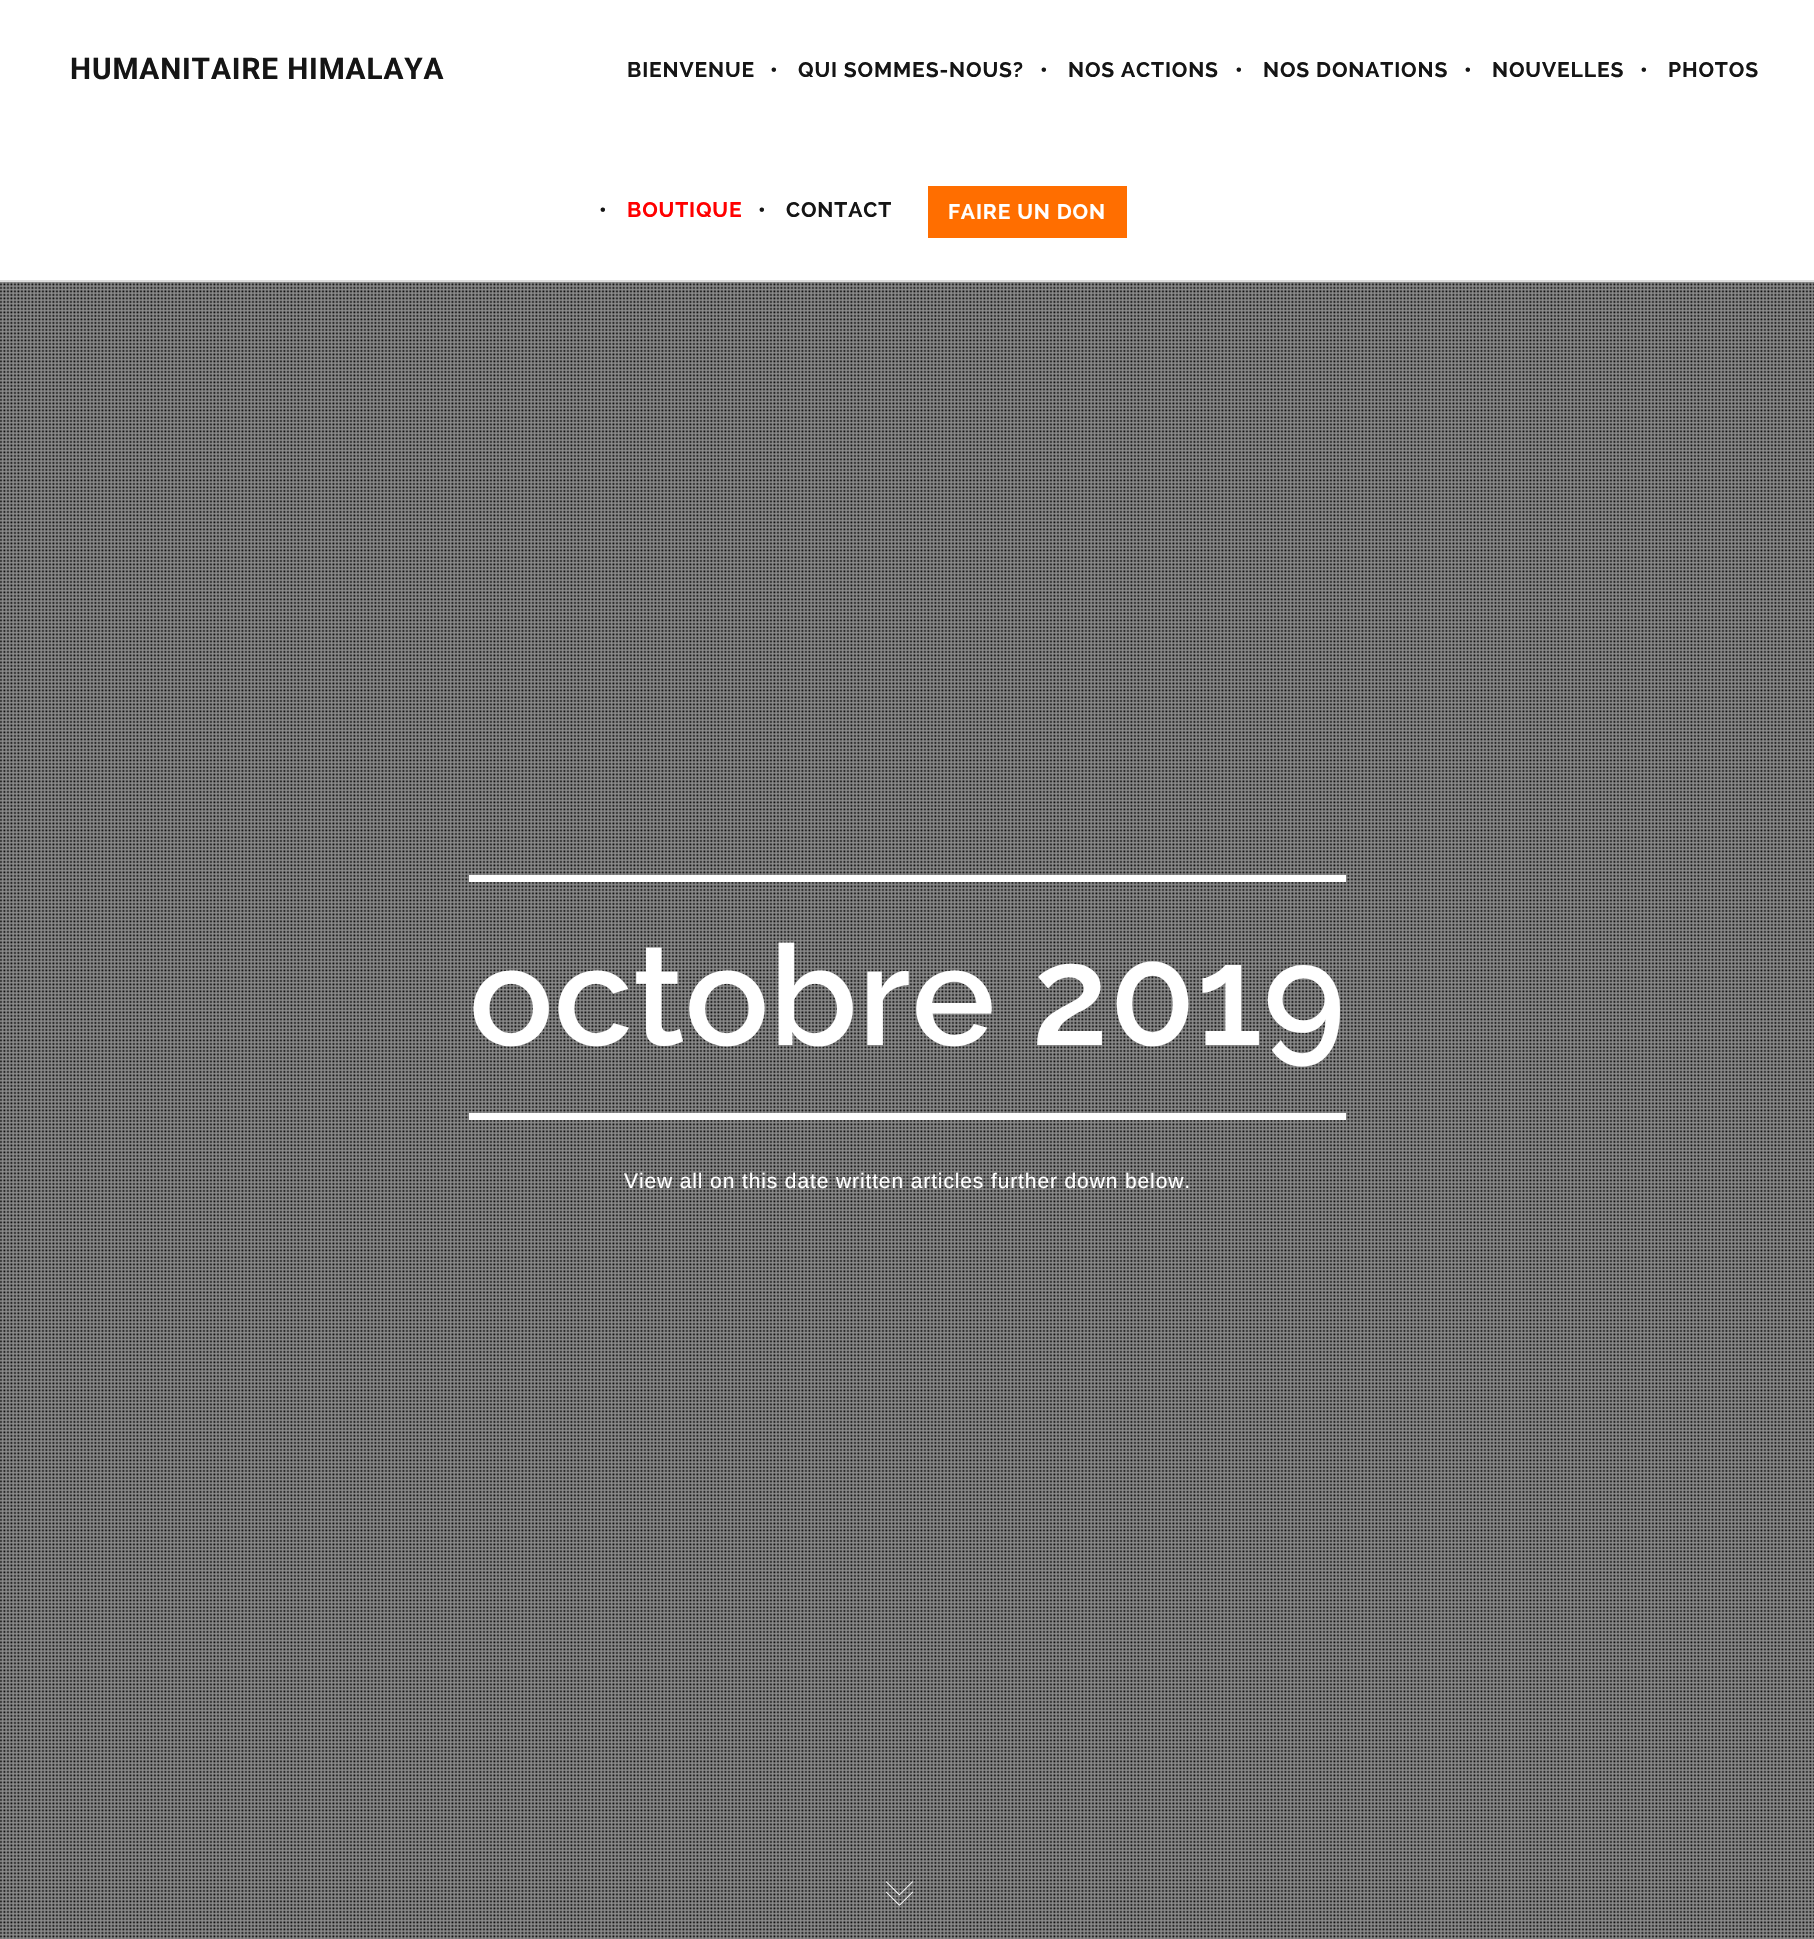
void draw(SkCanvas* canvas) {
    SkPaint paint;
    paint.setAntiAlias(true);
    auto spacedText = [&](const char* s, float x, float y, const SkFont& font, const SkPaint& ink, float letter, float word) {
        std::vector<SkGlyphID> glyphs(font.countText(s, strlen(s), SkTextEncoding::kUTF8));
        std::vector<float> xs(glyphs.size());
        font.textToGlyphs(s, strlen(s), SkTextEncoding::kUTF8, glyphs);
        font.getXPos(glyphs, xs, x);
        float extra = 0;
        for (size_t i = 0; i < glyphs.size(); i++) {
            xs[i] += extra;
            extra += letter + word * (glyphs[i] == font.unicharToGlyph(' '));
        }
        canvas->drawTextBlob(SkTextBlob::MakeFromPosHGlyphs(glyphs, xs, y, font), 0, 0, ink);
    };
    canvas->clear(0xFFFFFFFF);
    paint.setColor(0xFFDDDDDD);
    canvas->drawRect(SkRect::MakeXYWH(0, 280, 1814, 2), paint);
    SkFont font1(fontMgr->matchFamilyStyle("Roboto", SkFontStyle::Bold()), 29.75f);
    font1.setSubpixel(true);
    paint.setColor(0xFF151515);
    spacedText("HUMANITAIRE HIMALAYA", 70, 79, font1, paint, 0.88f, 0);
    SkFont font2(fontMgr->matchFamilyStyle("Raleway", SkFontStyle::Bold()), 21);
    font2.setSubpixel(true);
    spacedText("BIENVENUE", 627, 77, font2, paint, 0.88f, 0);
    spacedText("•", 770, 77, font2, paint, 0.88f, 0);
    spacedText("QUI SOMMES-NOUS?", 798, 77, font2, paint, 0.88f, 0);
    spacedText("•", 1040, 77, font2, paint, 0.88f, 0);
    spacedText("NOS ACTIONS", 1068, 77, font2, paint, 0.88f, 0);
    spacedText("•", 1235, 77, font2, paint, 0.88f, 0);
    spacedText("NOS DONATIONS", 1263, 77, font2, paint, 0.88f, 0);
    spacedText("•", 1464, 77, font2, paint, 0.88f, 0);
    spacedText("NOUVELLES", 1492, 77, font2, paint, 0.88f, 0);
    spacedText("•", 1640, 77, font2, paint, 0.88f, 0);
    spacedText("PHOTOS", 1668, 77, font2, paint, 0.88f, 0);
    spacedText("•", 599, 217, font2, paint, 0.88f, 0);
    paint.setColor(0xFFFF0000);
    spacedText("BOUTIQUE", 627, 217, font2, paint, 0.88f, 0);
    paint.setColor(0xFF151515);
    spacedText("•", 758, 217, font2, paint, 0.88f, 0);
    spacedText("CONTACT", 786, 217, font2, paint, 0.88f, 0);
    paint.setColor(0xFFFF6E00);
    canvas->drawRect(SkRect::MakeXYWH(928, 186, 199, 52), paint);
    paint.setColor(0xFFFFFFFF);
    spacedText("FAIRE UN DON", 948, 219, font2, paint, 0.88f, 0);
    canvas->drawImageRect(SkImages::DeferredFromEncodedData(SkData::MakeFromFileName("img1.png")), SkRect::MakeXYWH(0, 282, 1814, 1657), SkSamplingOptions());
    canvas->drawRect(SkRect::MakeXYWH(469, 875, 877, 7), paint);
    canvas->drawRect(SkRect::MakeXYWH(469, 1113, 877, 7), paint);
    SkFont font3(fontMgr->matchFamilyStyle("Raleway", SkFontStyle(600, SkFontStyle::kNormal_Width, SkFontStyle::kUpright_Slant)), 140);
    font3.setSubpixel(true);
    spacedText("octobre 2019", 469, 1045, font3, paint, 0.88f, 0);
    SkFont font4(fontMgr->matchFamilyStyle("Liberation Sans", SkFontStyle::Normal()), 21);
    font4.setSubpixel(true);
    spacedText("View all on this date written articles further down below.", 624, 1188, font4, paint, 0.88f, 0);
    canvas->drawImageRect(SkImages::DeferredFromEncodedData(SkData::MakeFromFileName("img2.png")), SkRect::MakeXYWH(886, 1881, 27, 25), SkSamplingOptions());
}
